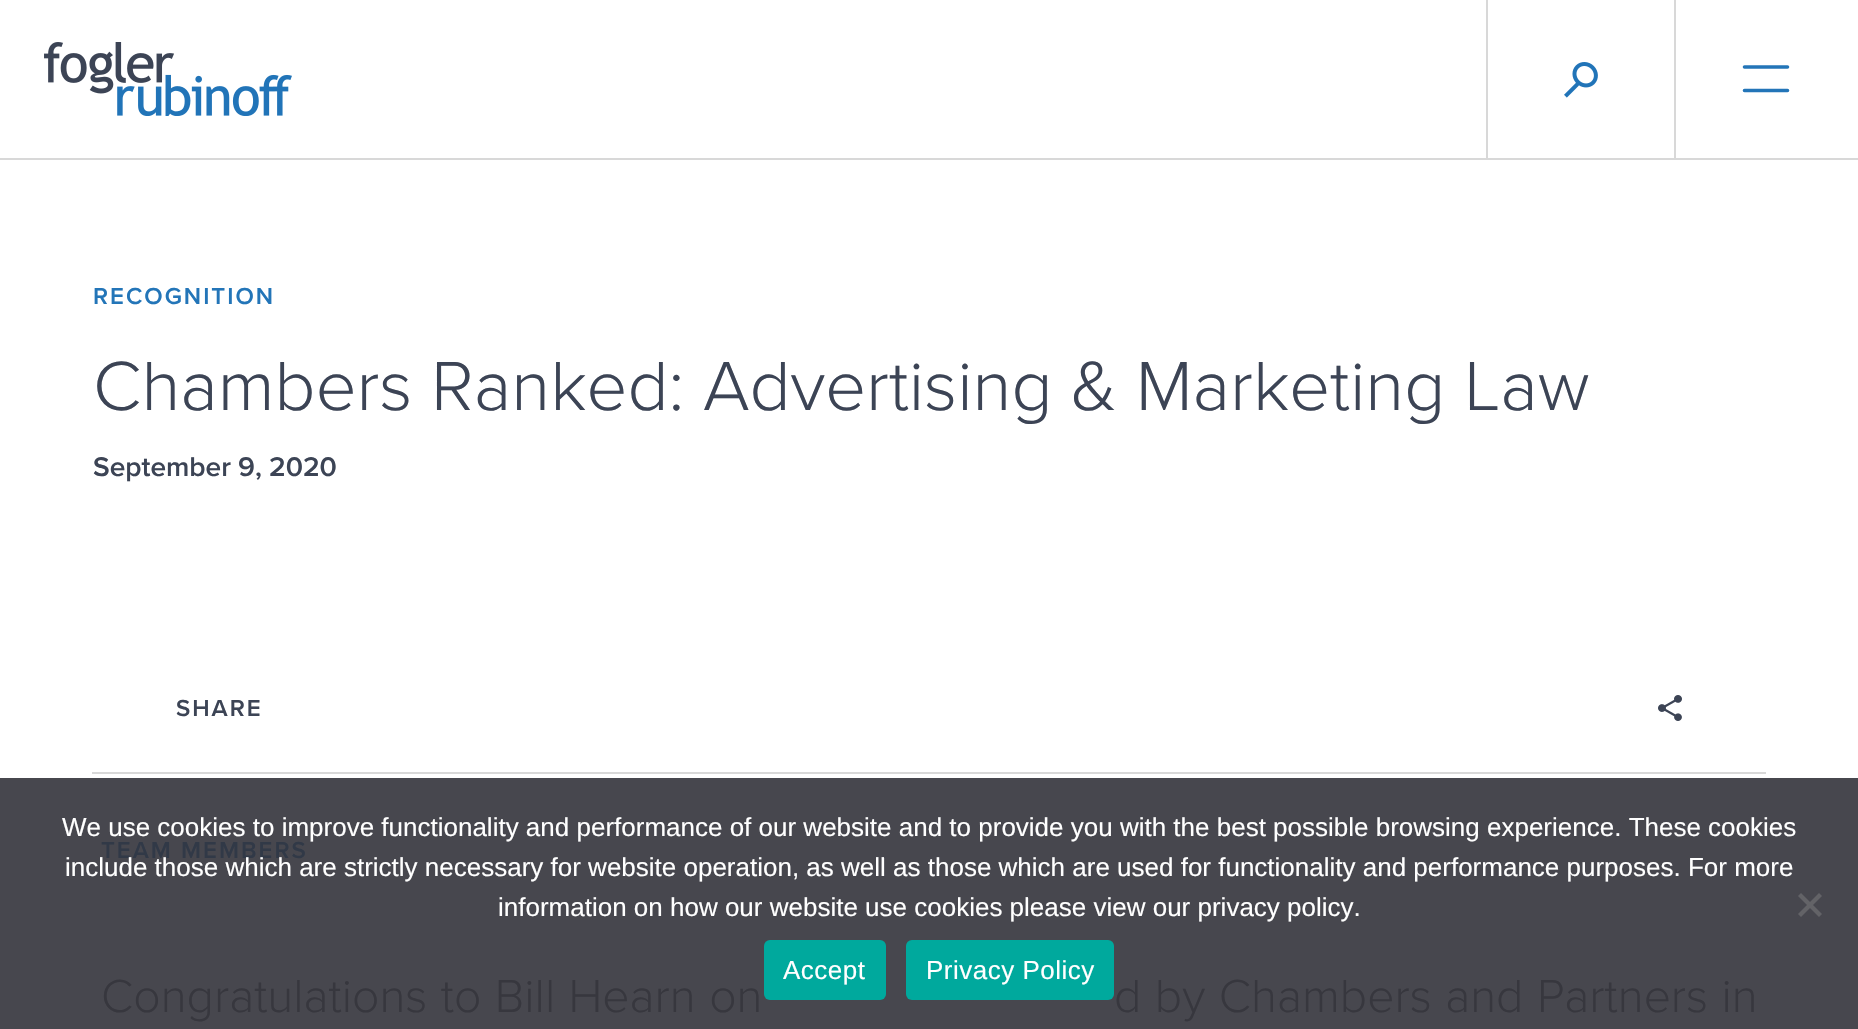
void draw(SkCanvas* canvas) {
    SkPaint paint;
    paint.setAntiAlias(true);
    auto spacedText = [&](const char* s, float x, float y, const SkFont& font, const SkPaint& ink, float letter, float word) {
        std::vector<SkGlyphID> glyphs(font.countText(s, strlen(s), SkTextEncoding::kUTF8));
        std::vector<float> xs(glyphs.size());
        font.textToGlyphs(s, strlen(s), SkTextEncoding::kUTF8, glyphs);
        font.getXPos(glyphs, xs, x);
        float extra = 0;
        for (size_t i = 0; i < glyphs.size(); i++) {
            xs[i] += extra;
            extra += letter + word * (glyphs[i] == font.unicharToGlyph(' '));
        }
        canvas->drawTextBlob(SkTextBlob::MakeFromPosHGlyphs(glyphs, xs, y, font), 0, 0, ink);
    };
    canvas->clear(0xFFFFFFFF);
    paint.setColor(0xFF47474E);
    canvas->drawRect(SkRect::MakeXYWH(0, 778, 1858, 251), paint);
    paint.setColor(0xFFD8D8D8);
    canvas->drawRect(SkRect::MakeXYWH(0, 158, 1858, 2), paint);
    canvas->drawImageRect(SkImages::DeferredFromEncodedData(SkData::MakeFromFileName("img1.png")), SkRect::MakeXYWH(44, 42, 248, 74), SkSamplingOptions());
    canvas->drawRect(SkRect::MakeXYWH(1486, 0, 2, 158), paint);
    canvas->drawImageRect(SkImages::DeferredFromEncodedData(SkData::MakeFromFileName("img2.png")), SkRect::MakeXYWH(1564, 62, 34, 36), SkSamplingOptions());
    canvas->drawRect(SkRect::MakeXYWH(1674, 0, 2, 158), paint);
    paint.setStyle(SkPaint::kStroke_Style);
    paint.setStrokeWidth(3.6f);
    paint.setStrokeCap(SkPaint::kRound_Cap);
    paint.setStrokeJoin(SkPaint::kRound_Join);
    paint.setColor(0xFF2375B8);
    canvas->drawPath(SkPathBuilder().moveTo(1744.5f, 67).lineTo(1787.5f, 67).moveTo(1744.5f, 90.5f).lineTo(1787.5f, 90.5f).detach(), paint);
    SkFont font1(fontMgr->matchFamilyStyle("Proxima Nova", SkFontStyle(600, SkFontStyle::kNormal_Width, SkFontStyle::kUpright_Slant)), 24);
    font1.setSubpixel(true);
    paint.setStyle(SkPaint::kFill_Style);
    spacedText("RECOGNITION", 93, 304, font1, paint, 2, 0);
    SkFont font2(fontMgr->matchFamilyStyle("Proxima Nova", SkFontStyle(300, SkFontStyle::kNormal_Width, SkFontStyle::kUpright_Slant)), 72);
    font2.setSubpixel(true);
    paint.setColor(0xFF3C4455);
    canvas->drawString("Chambers Ranked: Advertising & Marketing Law", 93, 410, font2, paint);
    SkFont font3(fontMgr->matchFamilyStyle("Proxima Nova", SkFontStyle(600, SkFontStyle::kNormal_Width, SkFontStyle::kUpright_Slant)), 28);
    font3.setSubpixel(true);
    canvas->drawString("September 9, 2020", 93, 476, font3, paint);
    paint.setColor(0xFFD8D8D8);
    canvas->drawRect(SkRect::MakeXYWH(92, 772, 1674, 2), paint);
    paint.setColor(0xFF3C4455);
    spacedText("SHARE", 176, 716, font1, paint, 2, 0);
    canvas->drawImageRect(SkImages::DeferredFromEncodedData(SkData::MakeFromFileName("img3.png")), SkRect::MakeXYWH(1658, 695, 24, 26), SkSamplingOptions());
    paint.setColor(0xFF313947);
    spacedText("TEAM MEMBERS", 101, 858, font1, paint, 2, 0);
    SkFont font4(fontMgr->matchFamilyStyle("Proxima Nova", SkFontStyle(300, SkFontStyle::kNormal_Width, SkFontStyle::kUpright_Slant)), 48);
    font4.setSubpixel(true);
    paint.setColor(0xFF37373E);
    spacedText("Congratulations to Bill Hearn on", 101, 1012, font4, paint, 0, 1);
    spacedText("d by Chambers and Partners in", 1114, 1012, font4, paint, 0, 1);
    SkFont font5(fontMgr->matchFamilyStyle("Liberation Sans", SkFontStyle::Normal()), 26);
    font5.setSubpixel(true);
    paint.setColor(0xFFFFFFFF);
    canvas->drawString("We use cookies to improve functionality and performance of our website and to provide you with the best possible browsing experience. These cookies", 62, 836, font5, paint);
    canvas->drawString("include those which are strictly necessary for website operation, as well as those which are used for functionality and performance purposes. For more", 65, 876, font5, paint);
    canvas->drawString("information on how our website use cookies please view our privacy policy.", 498, 916, font5, paint);
    paint.setColor(0xFF636367);
    canvas->drawPath(SkPathBuilder().moveTo(1819, 893).lineTo(1822, 896).lineTo(1801, 917).lineTo(1798, 914).close().detach(), paint);
    canvas->drawPath(SkPathBuilder().moveTo(1798, 896).lineTo(1801, 893).lineTo(1822, 914).lineTo(1819, 917).close().detach(), paint);
    paint.setColor(0xFF00A99D);
    canvas->drawRoundRect(SkRect::MakeXYWH(764, 940, 122, 60), 6, 6, paint);
    paint.setColor(0xFFFFFFFF);
    spacedText("Accept", 783, 979, font5, paint, 0.5f, 0);
    paint.setColor(0xFF00A99D);
    canvas->drawRoundRect(SkRect::MakeXYWH(906, 940, 208, 60), 6, 6, paint);
    paint.setColor(0xFFFFFFFF);
    spacedText("Privacy Policy", 926, 979, font5, paint, 0.5f, 0);
}
